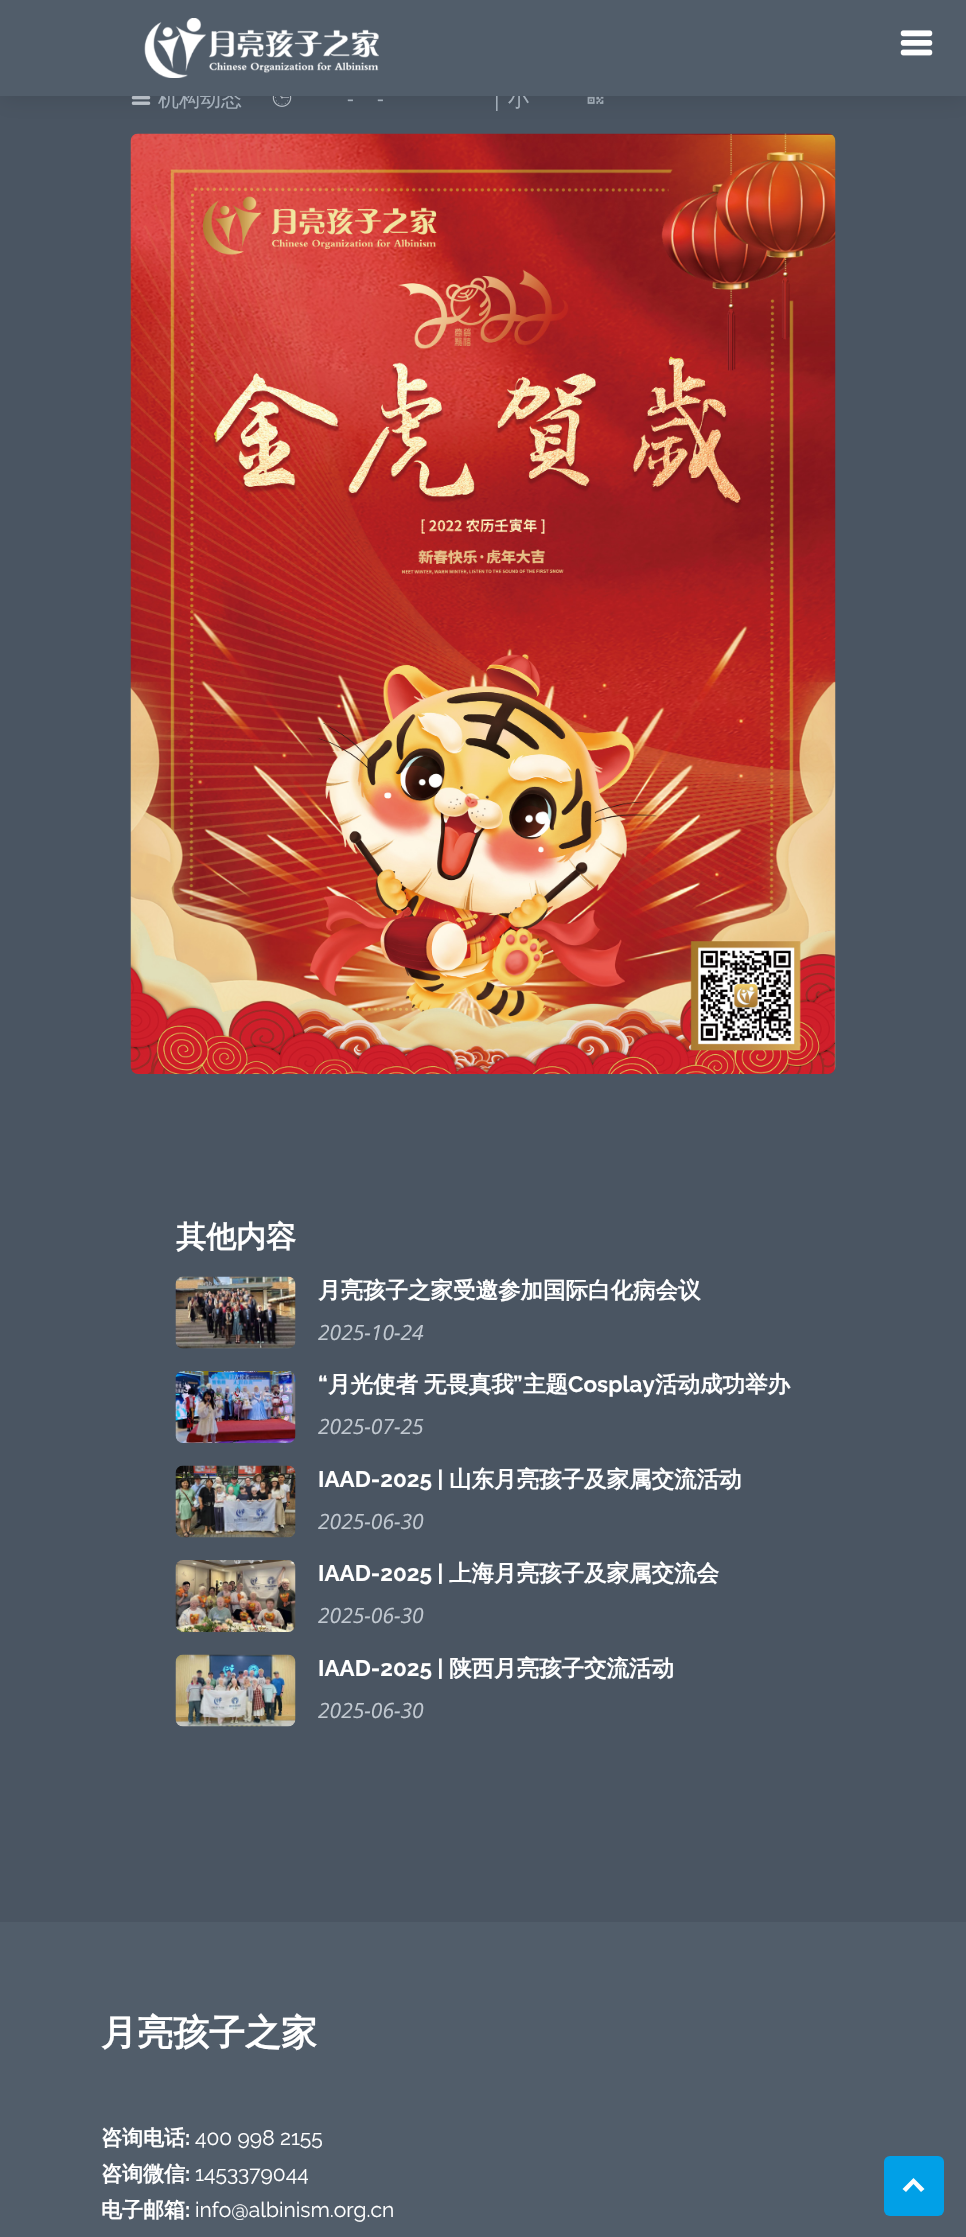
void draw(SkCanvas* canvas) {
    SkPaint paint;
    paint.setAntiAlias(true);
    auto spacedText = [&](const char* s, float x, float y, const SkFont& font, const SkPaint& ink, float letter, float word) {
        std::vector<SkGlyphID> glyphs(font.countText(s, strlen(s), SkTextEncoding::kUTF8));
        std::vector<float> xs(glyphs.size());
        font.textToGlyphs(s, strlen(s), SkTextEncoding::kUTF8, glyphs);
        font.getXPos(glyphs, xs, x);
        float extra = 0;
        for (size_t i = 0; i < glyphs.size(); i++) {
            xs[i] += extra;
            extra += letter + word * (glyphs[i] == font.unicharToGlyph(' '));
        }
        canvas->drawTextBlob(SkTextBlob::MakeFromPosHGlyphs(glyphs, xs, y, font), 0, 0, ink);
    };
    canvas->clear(0xFF4A5562);
    canvas->drawImageRect(SkImages::DeferredFromEncodedData(SkData::MakeFromFileName("img3.png")), SkRect::MakeXYWH(131, 96, 20, 9), SkSamplingOptions());
    canvas->drawImageRect(SkImages::DeferredFromEncodedData(SkData::MakeFromFileName("img4.png")), SkRect::MakeXYWH(272, 96, 20, 11), SkSamplingOptions());
    canvas->drawImageRect(SkImages::DeferredFromEncodedData(SkData::MakeFromFileName("img5.png")), SkRect::MakeXYWH(587, 96, 17, 8), SkSamplingOptions());
    paint.setColor(0x1A000000);
    paint.setMaskFilter(SkMaskFilter::MakeBlur(kNormal_SkBlurStyle, 11));
    canvas->drawRect(SkRect::MakeXYWH(0, 3, 966, 96), paint);
    paint.setMaskFilter(nullptr);
    SkFont font1(fontMgr->matchFamilyStyle("WenQuanYi Zen Hei", SkFontStyle(500, SkFontStyle::kNormal_Width, SkFontStyle::kUpright_Slant)), 21);
    font1.setSubpixel(true);
    paint.setColor(0xFFA4AFBA);
    canvas->drawString("机构动态", 158, 106, font1, paint);
    SkFont font2(fontMgr->matchFamilyStyle("Open Sans", SkFontStyle::Normal()), 21);
    font2.setSubpixel(true);
    canvas->drawString("|", 491, 106, font2, paint);
    canvas->drawString("小", 508, 106, font1, paint);
    paint.setColor(0xFF515D6A);
    canvas->drawRect(SkRect::MakeXYWH(0, 0, 966, 96), paint);
    canvas->drawImageRect(SkImages::DeferredFromEncodedData(SkData::MakeFromFileName("img1.png")), SkRect::MakeXYWH(144, 18, 235, 60), SkSamplingOptions());
    canvas->drawImageRect(SkImages::DeferredFromEncodedData(SkData::MakeFromFileName("img2.png")), SkRect::MakeXYWH(900, 30, 33, 26), SkSamplingOptions());
    paint.setColor(0xFFA4AFBA);
    canvas->drawString("-", 347, 106, font2, paint);
    canvas->drawString("-", 377, 106, font2, paint);
    canvas->drawImageRect(SkImages::DeferredFromEncodedData(SkData::MakeFromFileName("img6.png")), SkRect::MakeXYWH(130, 133, 706, 941), SkSamplingOptions());
    SkFont font3(fontMgr->matchFamilyStyle("WenQuanYi Zen Hei", SkFontStyle::Bold()), 30);
    font3.setSubpixel(true);
    paint.setColor(0xFFFFFFFF);
    canvas->drawString("其他内容", 176, 1247, font3, paint);
    canvas->drawImageRect(SkImages::DeferredFromEncodedData(SkData::MakeFromFileName("img7.png")), SkRect::MakeXYWH(175, 1276, 121, 73), SkSamplingOptions());
    SkFont font4(fontMgr->matchFamilyStyle("WenQuanYi Zen Hei", SkFontStyle::Bold()), 22.5f);
    font4.setSubpixel(true);
    canvas->drawString("月亮孩子之家受邀参加国际白化病会议", 318, 1298, font4, paint);
    SkFont font5(fontMgr->matchFamilyStyle("Open Sans", SkFontStyle::Italic()), 21);
    font5.setSubpixel(true);
    paint.setColor(0xFFC1C8D0);
    canvas->drawString("2025-10-24", 318, 1340, font5, paint);
    canvas->drawImageRect(SkImages::DeferredFromEncodedData(SkData::MakeFromFileName("img8.png")), SkRect::MakeXYWH(175, 1371, 121, 72), SkSamplingOptions());
    SkFont font6(fontMgr->matchFamilyStyle("Raleway", SkFontStyle::Bold()), 22.5f);
    font6.setSubpixel(true);
    paint.setColor(0xFFFFFFFF);
    canvas->drawString("“", 318, 1392, font6, paint);
    spacedText("月光使者 无畏真我", 328, 1392, font4, paint, 0, -1);
    canvas->drawString("”", 513, 1392, font6, paint);
    canvas->drawString("主题", 523, 1392, font4, paint);
    canvas->drawString("Cosplay", 568, 1392, font6, paint);
    canvas->drawString("活动成功举办", 655, 1392, font4, paint);
    paint.setColor(0xFFC1C8D0);
    canvas->drawString("2025-07-25", 318, 1434, font5, paint);
    canvas->drawImageRect(SkImages::DeferredFromEncodedData(SkData::MakeFromFileName("img9.png")), SkRect::MakeXYWH(175, 1465, 121, 73), SkSamplingOptions());
    paint.setColor(0xFFFFFFFF);
    canvas->drawString("IAAD-2025 |", 318, 1487, font6, paint);
    canvas->drawString("山东月亮孩子及家属交流活动", 449, 1487, font4, paint);
    paint.setColor(0xFFC1C8D0);
    canvas->drawString("2025-06-30", 318, 1529, font5, paint);
    canvas->drawImageRect(SkImages::DeferredFromEncodedData(SkData::MakeFromFileName("img10.png")), SkRect::MakeXYWH(175, 1560, 121, 72), SkSamplingOptions());
    paint.setColor(0xFFFFFFFF);
    canvas->drawString("IAAD-2025 |", 318, 1581, font6, paint);
    canvas->drawString("上海月亮孩子及家属交流会", 449, 1581, font4, paint);
    paint.setColor(0xFFC1C8D0);
    canvas->drawString("2025-06-30", 318, 1623, font5, paint);
    canvas->drawImageRect(SkImages::DeferredFromEncodedData(SkData::MakeFromFileName("img11.png")), SkRect::MakeXYWH(175, 1654, 121, 73), SkSamplingOptions());
    paint.setColor(0xFFFFFFFF);
    canvas->drawString("IAAD-2025 |", 318, 1676, font6, paint);
    canvas->drawString("陕西月亮孩子交流活动", 449, 1676, font4, paint);
    paint.setColor(0xFFC1C8D0);
    canvas->drawString("2025-06-30", 318, 1718, font5, paint);
    paint.setColor(0xFF515D6A);
    canvas->drawRect(SkRect::MakeXYWH(0, 1922, 966, 315), paint);
    SkFont font7(fontMgr->matchFamilyStyle("WenQuanYi Zen Hei", SkFontStyle::Bold()), 36);
    font7.setSubpixel(true);
    paint.setColor(0xFFFFFFFF);
    canvas->drawString("月亮孩子之家", 101, 2045, font7, paint);
    SkFont font8(fontMgr->matchFamilyStyle("WenQuanYi Zen Hei", SkFontStyle::Bold()), 21);
    font8.setSubpixel(true);
    canvas->drawString("咨询电话", 101, 2145, font8, paint);
    SkFont font9(fontMgr->matchFamilyStyle("Raleway", SkFontStyle::Bold()), 21);
    font9.setSubpixel(true);
    canvas->drawString(":", 185, 2145, font9, paint);
    SkFont font10(fontMgr->matchFamilyStyle("Raleway", SkFontStyle::Normal()), 21);
    font10.setSubpixel(true);
    canvas->drawString("400 998 2155", 195, 2145, font10, paint);
    canvas->drawString("咨询微信", 101, 2181, font8, paint);
    canvas->drawString(":", 185, 2181, font9, paint);
    canvas->drawString("1453379044", 195, 2181, font10, paint);
    canvas->drawString("电子邮箱", 101, 2217, font8, paint);
    canvas->drawString(":", 185, 2217, font9, paint);
    canvas->drawString("info@albinism.org.cn", 195, 2217, font10, paint);
    paint.setColor(0xFF01A0E7);
    canvas->drawRoundRect(SkRect::MakeXYWH(884, 2156, 60, 60), 6, 6, paint);
    paint.setColor(0xFFFDFDFD);
    canvas->drawPath(SkPathBuilder().moveTo(906, 2192).lineTo(913.5f, 2184).lineTo(921, 2192).lineTo(924.5f, 2189).lineTo(913.5f, 2178).lineTo(902.5f, 2189).close().detach(), paint);
}
